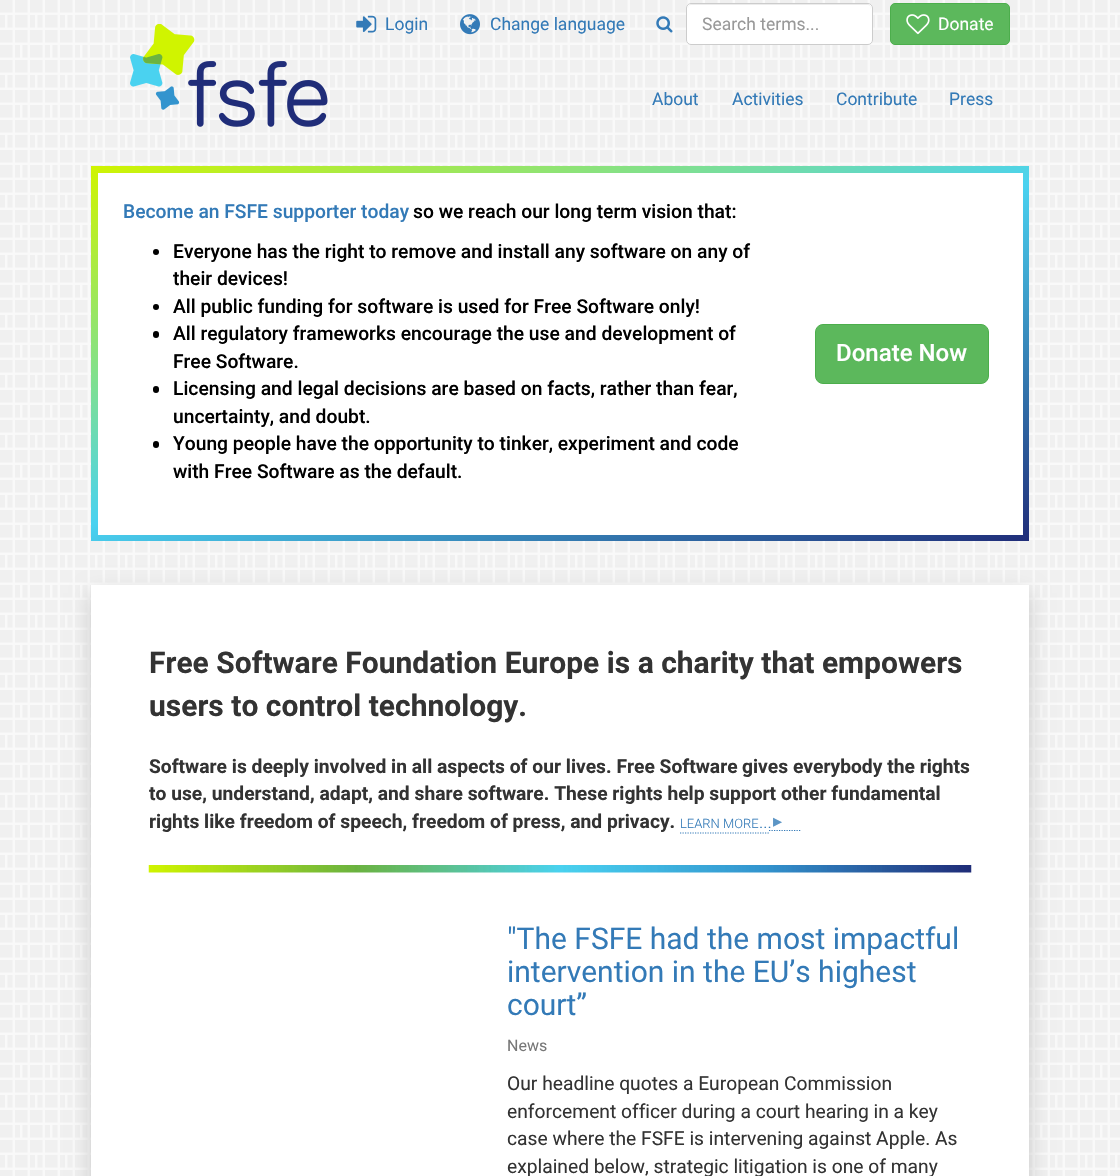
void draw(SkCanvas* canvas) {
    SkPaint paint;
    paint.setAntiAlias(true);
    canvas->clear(0xFFFFFFFF);
    canvas->drawImageRect(SkImages::DeferredFromEncodedData(SkData::MakeFromFileName("img1.png")), SkRect::MakeXYWH(0, 0, 1120, 1176), SkSamplingOptions());
    canvas->drawImageRect(SkImages::DeferredFromEncodedData(SkData::MakeFromFileName("img2.png")), SkRect::MakeXYWH(130, 24, 198, 103), SkSamplingOptions());
    canvas->drawImageRect(SkImages::DeferredFromEncodedData(SkData::MakeFromFileName("img3.png")), SkRect::MakeXYWH(356, 15, 21, 18), SkSamplingOptions());
    SkFont font1(fontMgr->matchFamilyStyle("Roboto", SkFontStyle::Normal()), 17.5f);
    font1.setSubpixel(true);
    paint.setColor(0xFF337AB7);
    canvas->drawString("Login", 385, 30, font1, paint);
    canvas->drawImageRect(SkImages::DeferredFromEncodedData(SkData::MakeFromFileName("img4.png")), SkRect::MakeXYWH(460, 14, 20, 21), SkSamplingOptions());
    canvas->drawString("Change language", 490, 30, font1, paint);
    canvas->drawImageRect(SkImages::DeferredFromEncodedData(SkData::MakeFromFileName("img5.png")), SkRect::MakeXYWH(656, 16, 17, 17), SkSamplingOptions());
    paint.setColor(0xFFFFFFFF);
    canvas->drawRoundRect(SkRect::MakeXYWH(686, 3, 187, 42), 5, 5, paint);
    paint.setColor(0xFFECECEC);
    canvas->drawPath(SkPathBuilder().moveTo(691, 5).lineTo(868, 5).cubicTo(870, 5, 871, 7, 871, 9).lineTo(871, 8).cubicTo(871, 6, 869, 4, 867, 4).lineTo(692, 4).cubicTo(690, 4, 688, 6, 688, 8).lineTo(688, 9).cubicTo(688, 7, 689, 5, 691, 5).close().detach(), paint);
    paint.setStyle(SkPaint::kStroke_Style);
    paint.setStrokeWidth(1);
    paint.setColor(0xFFCCCCCC);
    canvas->drawRoundRect(SkRect::MakeXYWH(686.5f, 3.5f, 186, 41), 4.5f, 4.5f, paint);
    paint.setStyle(SkPaint::kFill_Style);
    paint.setColor(0xFF999999);
    canvas->drawString("Search terms...", 702, 30, font1, paint);
    paint.setColor(0xFF5CB85C);
    canvas->drawRoundRect(SkRect::MakeXYWH(890.5f, 3.5f, 119, 41), 4.5f, 4.5f, paint);
    paint.setStyle(SkPaint::kStroke_Style);
    paint.setColor(0xFF4CAE4C);
    canvas->drawRoundRect(SkRect::MakeXYWH(890.5f, 3.5f, 119, 41), 4.5f, 4.5f, paint);
    canvas->drawImageRect(SkImages::DeferredFromEncodedData(SkData::MakeFromFileName("img6.png")), SkRect::MakeXYWH(906, 14, 24, 21), SkSamplingOptions());
    paint.setStyle(SkPaint::kFill_Style);
    paint.setColor(0xFFFFFFFF);
    canvas->drawString("Donate", 938, 30, font1, paint);
    paint.setColor(0xFF337AB7);
    canvas->drawString("About", 652, 105, font1, paint);
    canvas->drawString("Activities", 732, 105, font1, paint);
    canvas->drawString("Contribute", 836, 105, font1, paint);
    canvas->drawString("Press", 949, 105, font1, paint);
    {
        const SkColor colors[] = {0xFFD0F400, 0xFF4AD2F0, 0xFF202D79};
        const float stops[] = {0, 0.5f, 1};
        const SkPoint ends[] = {{445, 38}, {675, 670}};
        paint.setShader(SkGradientShader::MakeLinear(ends, colors, stops, 3, SkTileMode::kClamp));
        paint.setAlpha(255);
    }
    canvas->drawRect(SkRect::MakeXYWH(91, 166, 938, 375), paint);
    paint.setShader(nullptr);
    paint.setColor(0xFFFFFFFF);
    canvas->drawRect(SkRect::MakeXYWH(98, 173, 925, 362), paint);
    SkFont font2(fontMgr->matchFamilyStyle("Roboto", SkFontStyle(500, SkFontStyle::kNormal_Width, SkFontStyle::kUpright_Slant)), 19.25f);
    font2.setSubpixel(true);
    paint.setColor(0xFF337AB7);
    canvas->drawString("Become an FSFE supporter today", 123, 218, font2, paint);
    paint.setColor(0xFF000000);
    canvas->drawString("so we reach our long term vision that:", 413, 218, font2, paint);
    canvas->drawCircle(156, 252, 3, paint);
    canvas->drawString("Everyone has the right to remove and install any software on any of", 173, 258, font2, paint);
    canvas->drawString("their devices!", 173, 285, font2, paint);
    canvas->drawCircle(156, 307, 3, paint);
    canvas->drawString("All public funding for software is used for Free Software only!", 173, 313, font2, paint);
    canvas->drawRoundRect(SkRect::MakeXYWH(153, 331, 6, 7), 3, 3, paint);
    canvas->drawString("All regulatory frameworks encourage the use and development of", 173, 340, font2, paint);
    canvas->drawString("Free Software.", 173, 368, font2, paint);
    canvas->drawRoundRect(SkRect::MakeXYWH(153, 386, 6, 7), 3, 3, paint);
    canvas->drawString("Licensing and legal decisions are based on facts, rather than fear,", 173, 395, font2, paint);
    canvas->drawString("uncertainty, and doubt.", 173, 423, font2, paint);
    canvas->drawRoundRect(SkRect::MakeXYWH(153, 441, 6, 7), 3, 3, paint);
    canvas->drawString("Young people have the opportunity to tinker, experiment and code", 173, 450, font2, paint);
    canvas->drawString("with Free Software as the default.", 173, 478, font2, paint);
    paint.setColor(0xFF5CB85C);
    canvas->drawRoundRect(SkRect::MakeXYWH(815.5f, 324.5f, 173, 59), 7.5f, 7.5f, paint);
    paint.setStyle(SkPaint::kStroke_Style);
    paint.setColor(0xFF4CAE4C);
    canvas->drawRoundRect(SkRect::MakeXYWH(815.5f, 324.5f, 173, 59), 7.5f, 7.5f, paint);
    SkFont font3(fontMgr->matchFamilyStyle("Roboto", SkFontStyle(500, SkFontStyle::kNormal_Width, SkFontStyle::kUpright_Slant)), 24);
    font3.setSubpixel(true);
    paint.setStyle(SkPaint::kFill_Style);
    paint.setColor(0xFFFFFFFF);
    canvas->drawString("Donate Now", 836, 361, font3, paint);
    paint.setColor(0xFFC8C8C8);
    paint.setMaskFilter(SkMaskFilter::MakeBlur(kNormal_SkBlurStyle, 9.5f));
    canvas->drawRect(SkRect::MakeXYWH(91, 593, 938, 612), paint);
    paint.setMaskFilter(nullptr);
    paint.setColor(0xFFFFFFFF);
    canvas->drawRect(SkRect::MakeXYWH(91, 585, 938, 591), paint);
    canvas->drawImageRect(SkImages::DeferredFromEncodedData(SkData::MakeFromFileName("img7.png")), SkRect::MakeXYWH(148, 865, 824, 8), SkSamplingOptions());
    SkFont font4(fontMgr->matchFamilyStyle("Roboto", SkFontStyle::Bold()), 30);
    font4.setSubpixel(true);
    paint.setColor(0xFF333333);
    canvas->drawString("Free Software Foundation Europe is a charity that empowers", 149, 673, font4, paint);
    canvas->drawString("users to control technology.", 149, 716, font4, paint);
    SkFont font5(fontMgr->matchFamilyStyle("Roboto", SkFontStyle::Bold()), 19.25f);
    font5.setSubpixel(true);
    canvas->drawString("Software is deeply involved in all aspects of our lives. Free Software", 149, 773, font5, paint);
    canvas->drawString("gives everybody the rights", 742, 773, font5, paint);
    canvas->drawString("to use, understand, adapt, and share software. These rights help support other fundamental", 149, 800, font5, paint);
    canvas->drawString("rights like freedom of speech, freedom of press, and privacy.", 149, 828, font5, paint);
    paint.setStyle(SkPaint::kStroke_Style);
    paint.setStrokeWidth(1.2f);
    paint.setColor(0xFF337AB7);
    paint.setPathEffect(SkDashPathEffect::Make({{1.25f, 1.25f}}, 0));
    canvas->drawPath(SkPathBuilder().moveTo(680, 833).lineTo(770, 833).detach(), paint);
    paint.setPathEffect(nullptr);
    paint.setPathEffect(SkDashPathEffect::Make({{1.25f, 1.25f}}, 0));
    canvas->drawPath(SkPathBuilder().moveTo(769, 830.5f).lineTo(801, 830.5f).detach(), paint);
    paint.setPathEffect(nullptr);
    SkFont font6(fontMgr->matchFamilyStyle("Roboto", SkFontStyle(300, SkFontStyle::kNormal_Width, SkFontStyle::kUpright_Slant)), 13);
    font6.setSubpixel(true);
    paint.setStyle(SkPaint::kFill_Style);
    canvas->drawString("LEARN", 680, 828, font6, paint);
    canvas->drawString("MORE", 723, 828, font6, paint);
    SkFont font7(fontMgr->matchFamilyStyle("Roboto", SkFontStyle(300, SkFontStyle::kNormal_Width, SkFontStyle::kUpright_Slant)), 18);
    font7.setSubpixel(true);
    canvas->drawString("...", 759, 828, font7, paint);
    SkFont font8(fontMgr->matchFamilyStyle("DejaVu Sans", SkFontStyle::Normal()), 18);
    font8.setSubpixel(true);
    paint.setColor(0xFF5C95C5);
    canvas->drawString("▸", 773, 827, font8, paint);
    SkFont font9(fontMgr->matchFamilyStyle("Roboto", SkFontStyle::Normal()), 30);
    font9.setSubpixel(true);
    paint.setColor(0xFF337AB7);
    canvas->drawString("\"The FSFE had the most impactful", 507, 949, font9, paint);
    canvas->drawString("intervention in the EU’s highest", 507, 982, font9, paint);
    canvas->drawString("court”", 507, 1015, font9, paint);
    SkFont font10(fontMgr->matchFamilyStyle("Roboto", SkFontStyle::Normal()), 16);
    font10.setSubpixel(true);
    paint.setColor(0xFF777777);
    canvas->drawString("News", 507, 1051, font10, paint);
    SkFont font11(fontMgr->matchFamilyStyle("Roboto", SkFontStyle::Normal()), 19.25f);
    font11.setSubpixel(true);
    paint.setColor(0xFF333333);
    canvas->drawString("Our headline quotes a European Commission", 507, 1090, font11, paint);
    canvas->drawString("enforcement officer during a court hearing in a key", 507, 1118, font11, paint);
    canvas->drawString("case where the FSFE is intervening against Apple. As", 507, 1145, font11, paint);
    canvas->drawString("explained below, strategic litigation is one of many", 507, 1173, font11, paint);
}
